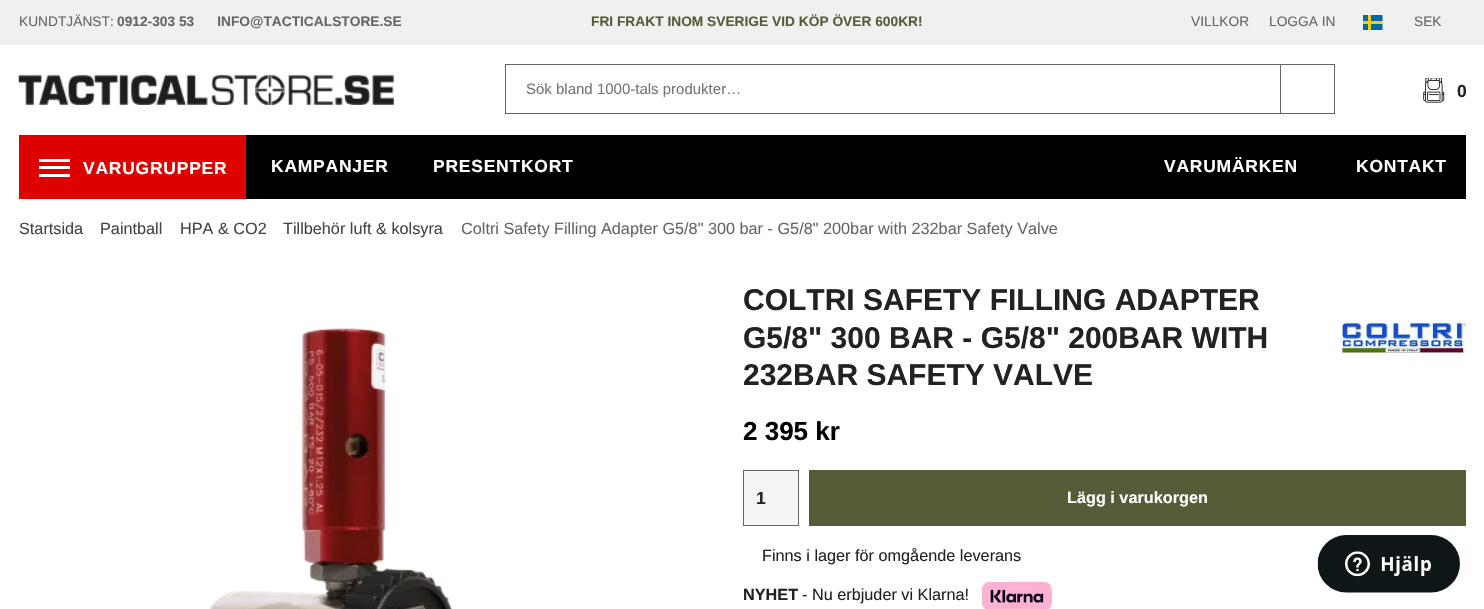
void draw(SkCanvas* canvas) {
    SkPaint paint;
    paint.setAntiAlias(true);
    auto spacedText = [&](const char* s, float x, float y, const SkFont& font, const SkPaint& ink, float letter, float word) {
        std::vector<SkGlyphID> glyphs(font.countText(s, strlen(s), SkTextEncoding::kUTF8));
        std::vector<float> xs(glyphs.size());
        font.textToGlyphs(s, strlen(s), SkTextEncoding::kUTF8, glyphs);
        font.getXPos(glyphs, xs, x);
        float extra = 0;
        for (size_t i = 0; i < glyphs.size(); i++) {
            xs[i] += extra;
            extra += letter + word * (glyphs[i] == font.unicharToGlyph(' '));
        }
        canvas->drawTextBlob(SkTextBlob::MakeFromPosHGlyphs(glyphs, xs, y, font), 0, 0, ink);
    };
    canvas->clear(0xFFFFFFFF);
    paint.setColor(0xFFF0F0F0);
    canvas->drawRect(SkRect::MakeXYWH(0, 0, 1484, 45), paint);
    SkFont font1(fontMgr->matchFamilyStyle("Liberation Sans", SkFontStyle::Normal()), 13.75f);
    font1.setSubpixel(true);
    paint.setColor(0xFF666666);
    canvas->drawString("KUNDTJÄNST:", 19, 26, font1, paint);
    SkFont font2(fontMgr->matchFamilyStyle("Liberation Sans", SkFontStyle::Bold()), 13.75f);
    font2.setSubpixel(true);
    canvas->drawString("0912-303 53      INFO@TACTICALSTORE.SE", 117, 26, font2, paint);
    paint.setColor(0xFF565C38);
    canvas->drawString("FRI FRAKT INOM SVERIGE VID KÖP ÖVER 600KR!", 591, 26, font2, paint);
    paint.setColor(0xFF666666);
    canvas->drawString("VILLKOR", 1191, 26, font1, paint);
    canvas->drawString("LOGGA IN", 1269, 26, font1, paint);
    canvas->drawImageRect(SkImages::DeferredFromEncodedData(SkData::MakeFromFileName("img1.png")), SkRect::MakeXYWH(1363, 15, 20, 15), SkSamplingOptions());
    canvas->drawString("SEK", 1414, 26, font1, paint);
    canvas->drawImageRect(SkImages::DeferredFromEncodedData(SkData::MakeFromFileName("img2.png")), SkRect::MakeXYWH(18, 74, 376, 31), SkSamplingOptions());
    paint.setStyle(SkPaint::kStroke_Style);
    paint.setStrokeWidth(1);
    canvas->drawRect(SkRect::MakeXYWH(505.5f, 64.5f, 775, 49), paint);
    SkFont font3(fontMgr->matchFamilyStyle("Liberation Sans", SkFontStyle::Normal()), 15);
    font3.setSubpixel(true);
    paint.setStyle(SkPaint::kFill_Style);
    paint.setColor(0xFF757575);
    canvas->drawString("Sök bland 1000-tals produkter…", 526, 94, font3, paint);
    paint.setColor(0xFF666666);
    canvas->drawRect(SkRect::MakeXYWH(1281, 64, 54, 1), paint);
    canvas->drawRect(SkRect::MakeXYWH(1334, 64, 1, 50), paint);
    canvas->drawRect(SkRect::MakeXYWH(1281, 113, 54, 1), paint);
    canvas->drawImageRect(SkImages::DeferredFromEncodedData(SkData::MakeFromFileName("img3.png")), SkRect::MakeXYWH(1423, 78, 22, 25), SkSamplingOptions());
    SkFont font4(fontMgr->matchFamilyStyle("Liberation Sans", SkFontStyle::Bold()), 17.5f);
    font4.setSubpixel(true);
    paint.setColor(0xFF222222);
    canvas->drawString("0", 1457, 97, font4, paint);
    paint.setColor(0xFF000000);
    canvas->drawRect(SkRect::MakeXYWH(246, 135, 1220, 64), paint);
    paint.setColor(0xFFDD0200);
    canvas->drawRect(SkRect::MakeXYWH(19, 135, 227, 64), paint);
    paint.setColor(0xFFFFFFFF);
    canvas->drawRect(SkRect::MakeXYWH(39, 159, 31, 3), paint);
    canvas->drawRect(SkRect::MakeXYWH(39, 166, 31, 3), paint);
    canvas->drawRect(SkRect::MakeXYWH(39, 174, 31, 3), paint);
    spacedText("VARUGRUPPER", 83, 174, font4, paint, 0.75f, 0);
    spacedText("KAMPANJER", 271, 172, font4, paint, 0.75f, 0);
    spacedText("PRESENTKORT", 433, 172, font4, paint, 0.75f, 0);
    spacedText("VARUMÄRKEN", 1164, 172, font4, paint, 0.75f, 0);
    spacedText("KONTAKT", 1356, 172, font4, paint, 0.75f, 0);
    SkFont font5(fontMgr->matchFamilyStyle("Liberation Sans", SkFontStyle::Normal()), 16.25f);
    font5.setSubpixel(true);
    paint.setColor(0xFF444444);
    canvas->drawString("Startsida", 19, 234, font5, paint);
    canvas->drawString("Paintball", 100, 234, font5, paint);
    canvas->drawString("HPA & CO2", 180, 234, font5, paint);
    canvas->drawString("Tillbehör luft & kolsyra", 283, 234, font5, paint);
    paint.setColor(0xFF666666);
    canvas->drawString("Coltri Safety Filling Adapter G5/8\" 300 bar - G5/8\" 200bar with 232bar Safety Valve", 461, 234, font5, paint);
    canvas->drawImageRect(SkImages::DeferredFromEncodedData(SkData::MakeFromFileName("img4.png")), SkRect::MakeXYWH(209, 328, 243, 281), SkSamplingOptions());
    SkFont font6(fontMgr->matchFamilyStyle("Liberation Sans", SkFontStyle::Bold()), 30);
    font6.setSubpixel(true);
    paint.setColor(0xFF222222);
    canvas->drawString("COLTRI SAFETY FILLING ADAPTER", 743, 310, font6, paint);
    canvas->drawString("G5/8\" 300 BAR - G5/8\" 200BAR WITH", 743, 348, font6, paint);
    canvas->drawString("232BAR SAFETY VALVE", 743, 385, font6, paint);
    canvas->drawImageRect(SkImages::DeferredFromEncodedData(SkData::MakeFromFileName("img5.png")), SkRect::MakeXYWH(1341, 321, 125, 33), SkSamplingOptions());
    SkFont font7(fontMgr->matchFamilyStyle("Liberation Sans", SkFontStyle::Bold()), 26);
    font7.setSubpixel(true);
    paint.setColor(0xFF000000);
    canvas->drawString("2 395 kr", 743, 440, font7, paint);
    paint.setColor(0xFFF5F5F5);
    canvas->drawRect(SkRect::MakeXYWH(743.5f, 470.5f, 55, 55), paint);
    paint.setStyle(SkPaint::kStroke_Style);
    paint.setColor(0xFF666666);
    canvas->drawRect(SkRect::MakeXYWH(743.5f, 470.5f, 55, 55), paint);
    paint.setStyle(SkPaint::kFill_Style);
    paint.setColor(0xFF222222);
    canvas->drawString("1", 756, 504, font4, paint);
    paint.setColor(0xFF565C38);
    canvas->drawRect(SkRect::MakeXYWH(809, 470, 657, 56), paint);
    SkFont font8(fontMgr->matchFamilyStyle("Liberation Sans", SkFontStyle::Bold()), 16.25f);
    font8.setSubpixel(true);
    paint.setColor(0xFFFFFFFF);
    canvas->drawString("Lägg i varukorgen", 1067, 503, font8, paint);
    paint.setColor(0xFF222222);
    canvas->drawString("Finns i lager för omgående leverans", 762, 561, font5, paint);
    canvas->drawString("NYHET", 743, 600, font8, paint);
    canvas->drawString("- Nu erbjuder vi Klarna!", 802, 600, font5, paint);
    canvas->drawImageRect(SkImages::DeferredFromEncodedData(SkData::MakeFromFileName("img6.png")), SkRect::MakeXYWH(981, 581, 71, 28), SkSamplingOptions());
    canvas->drawImageRect(SkImages::DeferredFromEncodedData(SkData::MakeFromFileName("img7.png")), SkRect::MakeXYWH(1317, 535, 143, 58), SkSamplingOptions());
}
